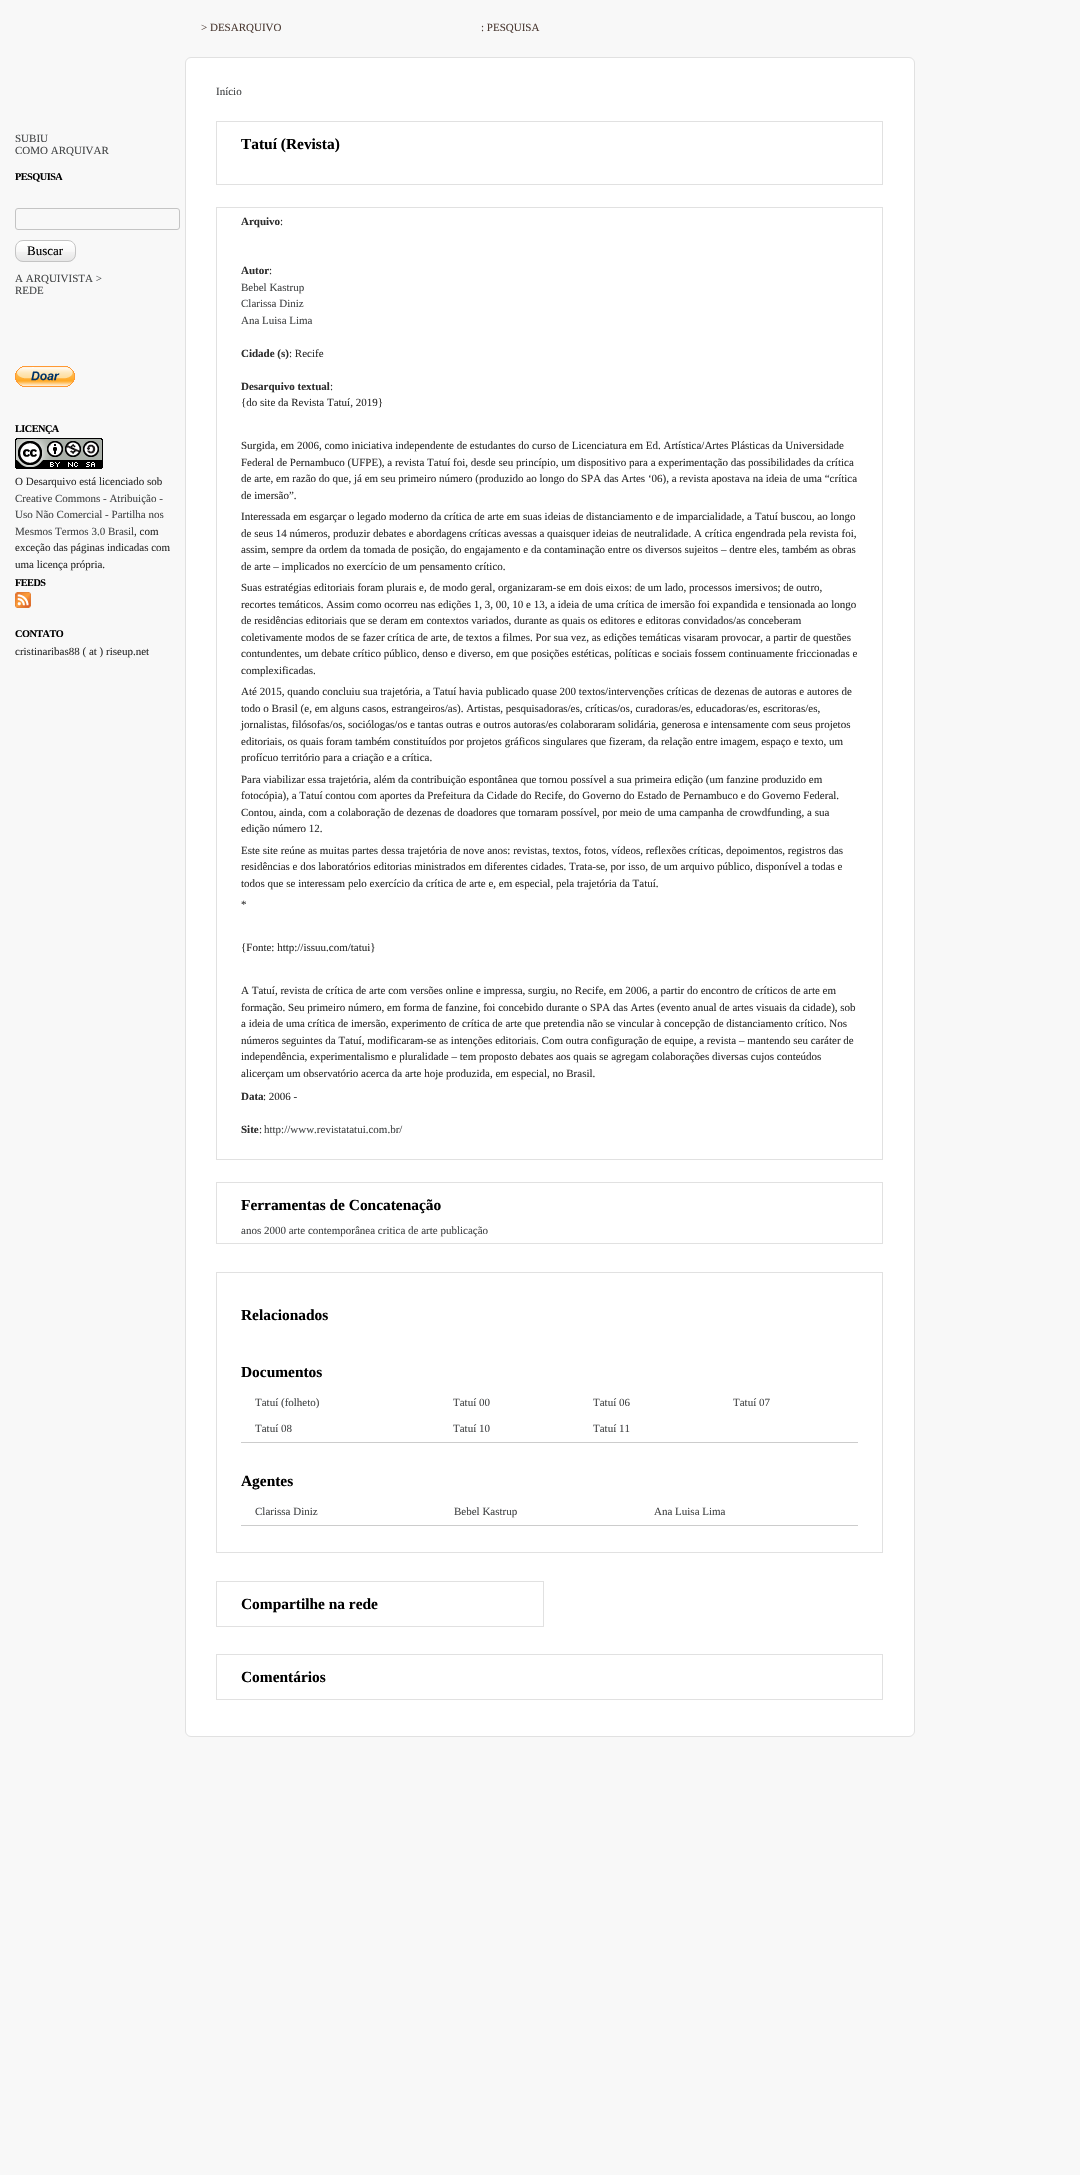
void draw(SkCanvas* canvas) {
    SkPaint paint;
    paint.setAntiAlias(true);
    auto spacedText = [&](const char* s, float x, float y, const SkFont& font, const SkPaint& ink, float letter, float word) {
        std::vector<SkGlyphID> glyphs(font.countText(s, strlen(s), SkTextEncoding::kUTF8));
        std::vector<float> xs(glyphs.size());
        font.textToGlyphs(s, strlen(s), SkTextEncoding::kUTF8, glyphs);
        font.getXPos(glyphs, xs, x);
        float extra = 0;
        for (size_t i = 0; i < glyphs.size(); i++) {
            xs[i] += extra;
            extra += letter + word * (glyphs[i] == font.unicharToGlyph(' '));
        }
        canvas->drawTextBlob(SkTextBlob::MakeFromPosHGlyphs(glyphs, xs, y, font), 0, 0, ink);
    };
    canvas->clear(0xFFF8F8F8);
    SkFont font1(fontMgr->matchFamilyStyle("Liberation Serif", SkFontStyle::Normal()), 11);
    font1.setSubpixel(true);
    paint.setColor(0xFF4C3B34);
    canvas->drawString("> DESARQUIVO", 201, 31, font1, paint);
    canvas->drawString(": PESQUISA", 481, 31, font1, paint);
    paint.setColor(0xFF444647);
    canvas->drawString("SUBIU", 15, 142, font1, paint);
    canvas->drawString("COMO ARQUIVAR", 15, 154, font1, paint);
    SkFont font2(fontMgr->matchFamilyStyle("Liberation Serif", SkFontStyle::Bold()), 10.25f);
    font2.setSubpixel(true);
    paint.setColor(0xFF000000);
    spacedText("PESQUISA", 15, 180, font2, paint, -0.5f, 0);
    paint.setStyle(SkPaint::kStroke_Style);
    paint.setStrokeWidth(1);
    paint.setColor(0xFFC4C4C4);
    canvas->drawRoundRect(SkRect::MakeXYWH(15.5f, 208.5f, 164, 21), 2.5f, 2.5f, paint);
    canvas->drawImageRect(SkImages::DeferredFromEncodedData(SkData::MakeFromFileName("img1.png")), SkRect::MakeXYWH(15, 241, 61, 21), SkSamplingOptions());
    canvas->drawRoundRect(SkRect::MakeXYWH(15.5f, 240.5f, 60, 21), 7.5f, 7.5f, paint);
    SkFont font3(fontMgr->matchFamilyStyle("Liberation Serif", SkFontStyle::Normal()), 13);
    font3.setSubpixel(true);
    paint.setStyle(SkPaint::kFill_Style);
    paint.setColor(0xFF000000);
    canvas->drawString("Buscar", 27, 255, font3, paint);
    paint.setColor(0xFF444647);
    canvas->drawString("A ARQUIVISTA >", 15, 282, font1, paint);
    canvas->drawString("REDE", 15, 294, font1, paint);
    canvas->drawImageRect(SkImages::DeferredFromEncodedData(SkData::MakeFromFileName("img2.png")), SkRect::MakeXYWH(15, 366, 60, 21), SkSamplingOptions());
    paint.setColor(0xFF000000);
    spacedText("LICENÇA", 15, 432, font2, paint, -0.5f, 0);
    canvas->drawImageRect(SkImages::DeferredFromEncodedData(SkData::MakeFromFileName("img3.png")), SkRect::MakeXYWH(15, 438, 88, 31), SkSamplingOptions());
    paint.setColor(0xFF2E2E2E);
    canvas->drawString("O Desarquivo está licenciado sob", 15, 485, font1, paint);
    paint.setColor(0xFF444647);
    canvas->drawString("Creative Commons - Atribuição -", 15, 502, font1, paint);
    canvas->drawString("Uso Não Comercial - Partilha nos", 15, 518, font1, paint);
    canvas->drawString("Mesmos Termos 3.0 Brasil", 15, 535, font1, paint);
    paint.setColor(0xFF2E2E2E);
    canvas->drawString(", com", 134, 535, font1, paint);
    canvas->drawString("exceção das páginas indicadas com", 15, 551, font1, paint);
    canvas->drawString("uma licença própria.", 15, 568, font1, paint);
    paint.setColor(0xFF000000);
    spacedText("FEEDS", 15, 586, font2, paint, -0.5f, 0);
    canvas->drawImageRect(SkImages::DeferredFromEncodedData(SkData::MakeFromFileName("img4.png")), SkRect::MakeXYWH(15, 592, 16, 16), SkSamplingOptions());
    spacedText("CONTATO", 15, 637, font2, paint, -0.5f, 0);
    paint.setColor(0xFF2E2E2E);
    canvas->drawString("cristinaribas88 ( at ) riseup.net", 15, 655, font1, paint);
    paint.setColor(0xFFFFFFFF);
    canvas->drawRoundRect(SkRect::MakeXYWH(185.5f, 57.5f, 729, 1679), 5.5f, 5.5f, paint);
    paint.setStyle(SkPaint::kStroke_Style);
    paint.setColor(0xFFE1E1E1);
    canvas->drawRoundRect(SkRect::MakeXYWH(185.5f, 57.5f, 729, 1679), 5.5f, 5.5f, paint);
    paint.setStyle(SkPaint::kFill_Style);
    paint.setColor(0xFF444647);
    canvas->drawString("Início", 216, 95, font1, paint);
    paint.setStyle(SkPaint::kStroke_Style);
    paint.setColor(0xFFE1E1E1);
    canvas->drawRect(SkRect::MakeXYWH(216.5f, 121.5f, 666, 63), paint);
    SkFont font4(fontMgr->matchFamilyStyle("Liberation Serif", SkFontStyle::Bold()), 15.4f);
    font4.setSubpixel(true);
    paint.setStyle(SkPaint::kFill_Style);
    paint.setColor(0xFF000000);
    canvas->drawString("Tatuí (Revista)", 241, 149, font4, paint);
    paint.setStyle(SkPaint::kStroke_Style);
    paint.setColor(0xFFE1E1E1);
    canvas->drawRect(SkRect::MakeXYWH(216.5f, 207.5f, 666, 952), paint);
    SkFont font5(fontMgr->matchFamilyStyle("Liberation Serif", SkFontStyle::Bold()), 11);
    font5.setSubpixel(true);
    paint.setStyle(SkPaint::kFill_Style);
    paint.setColor(0xFF2E2E2E);
    canvas->drawString("Arquivo", 241, 225, font5, paint);
    canvas->drawString(":", 280, 225, font1, paint);
    canvas->drawString("Autor", 241, 274, font5, paint);
    canvas->drawString(":", 269, 274, font1, paint);
    paint.setColor(0xFF444647);
    canvas->drawString("Bebel Kastrup", 241, 291, font1, paint);
    canvas->drawString("Clarissa Diniz", 241, 307, font1, paint);
    canvas->drawString("Ana Luisa Lima", 241, 324, font1, paint);
    paint.setColor(0xFF2E2E2E);
    canvas->drawString("Cidade (s)", 241, 357, font5, paint);
    canvas->drawString(": Recife", 289, 357, font1, paint);
    canvas->drawString("Desarquivo textual", 241, 390, font5, paint);
    canvas->drawString(":", 330, 390, font1, paint);
    canvas->drawString("{do site da Revista Tatuí, 2019}", 241, 406, font1, paint);
    canvas->drawString("Surgida, em 2006, como iniciativa independente de estudantes do curso de Licenciatura em Ed. Artística/Artes Plásticas da Universidade", 241, 449, font1, paint);
    canvas->drawString("Federal de Pernambuco (UFPE), a revista Tatuí foi, desde seu princípio, um dispositivo para a experimentação das possibilidades da crítica", 241, 466, font1, paint);
    canvas->drawString("de arte, em razão do que, já em seu primeiro número (produzido ao longo do SPA das Artes ‘06), a revista apostava na ideia de uma “crítica", 241, 482, font1, paint);
    canvas->drawString("de imersão”.", 241, 499, font1, paint);
    canvas->drawString("Interessada em esgarçar o legado moderno da crítica de arte em suas ideias de distanciamento e de imparcialidade, a Tatuí buscou, ao longo", 241, 520, font1, paint);
    canvas->drawString("de seus 14 números, produzir debates e abordagens críticas avessas a quaisquer ideias de neutralidade. A crítica engendrada pela revista foi,", 241, 537, font1, paint);
    canvas->drawString("assim, sempre da ordem da tomada de posição, do engajamento e da contaminação entre os diversos sujeitos – dentre eles, também as obras", 241, 553, font1, paint);
    canvas->drawString("de arte – implicados no exercício de um pensamento crítico.", 241, 570, font1, paint);
    canvas->drawString("Suas estratégias editoriais foram plurais e, de modo geral, organizaram-se em dois eixos: de um lado, processos imersivos; de outro,", 241, 591, font1, paint);
    canvas->drawString("recortes temáticos. Assim como ocorreu nas edições 1, 3, 00, 10 e 13, a ideia de uma crítica de imersão foi expandida e tensionada ao longo", 241, 608, font1, paint);
    canvas->drawString("de residências editoriais que se deram em contextos variados, durante as quais os editores e editoras convidados/as conceberam", 241, 624, font1, paint);
    canvas->drawString("coletivamente modos de se fazer crítica de arte, de textos a filmes. Por sua vez, as edições temáticas visaram provocar, a partir de questões", 241, 641, font1, paint);
    canvas->drawString("contundentes, um debate crítico público, denso e diverso, em que posições estéticas, políticas e sociais fossem continuamente friccionadas e", 241, 657, font1, paint);
    canvas->drawString("complexificadas.", 241, 674, font1, paint);
    canvas->drawString("Até 2015, quando concluiu sua trajetória, a Tatuí havia publicado quase 200 textos/intervenções críticas de dezenas de autoras e autores de", 241, 695, font1, paint);
    canvas->drawString("todo o Brasil (e, em alguns casos, estrangeiros/as). Artistas, pesquisadoras/es, críticas/os, curadoras/es, educadoras/es, escritoras/es,", 241, 712, font1, paint);
    canvas->drawString("jornalistas, filósofas/os, sociólogas/os e tantas outras e outros autoras/es colaboraram solidária, generosa e intensamente com seus projetos", 241, 728, font1, paint);
    canvas->drawString("editoriais, os quais foram também constituídos por projetos gráficos singulares que fizeram, da relação entre imagem, espaço e texto, um", 241, 745, font1, paint);
    canvas->drawString("profícuo território para a criação e a crítica.", 241, 761, font1, paint);
    canvas->drawString("Para viabilizar essa trajetória, além da contribuição espontânea que tornou possível a sua primeira edição (um fanzine produzido em", 241, 783, font1, paint);
    canvas->drawString("fotocópia), a Tatuí contou com aportes da Prefeitura da Cidade do Recife, do Governo do Estado de Pernambuco e do Governo Federal.", 241, 799, font1, paint);
    canvas->drawString("Contou, ainda, com a colaboração de dezenas de doadores que tornaram possível, por meio de uma campanha de crowdfunding, a sua", 241, 816, font1, paint);
    canvas->drawString("edição número 12.", 241, 832, font1, paint);
    canvas->drawString("Este site reúne as muitas partes dessa trajetória de nove anos: revistas, textos, fotos, vídeos, reflexões críticas, depoimentos, registros das", 241, 854, font1, paint);
    canvas->drawString("residências e dos laboratórios editorias ministrados em diferentes cidades. Trata-se, por isso, de um arquivo público, disponível a todas e", 241, 870, font1, paint);
    canvas->drawString("todos que se interessam pelo exercício da crítica de arte e, em especial, pela trajetória da Tatuí.", 241, 887, font1, paint);
    canvas->drawString("*", 241, 908, font1, paint);
    canvas->drawString("{Fonte: http://issuu.com/tatui}", 241, 951, font1, paint);
    canvas->drawString("A Tatuí, revista de crítica de arte com versões online e impressa, surgiu, no Recife, em 2006, a partir do encontro de críticos de arte em", 241, 994, font1, paint);
    canvas->drawString("formação. Seu primeiro número, em forma de fanzine, foi concebido durante o SPA das Artes (evento anual de artes visuais da cidade), sob", 241, 1011, font1, paint);
    canvas->drawString("a ideia de uma crítica de imersão, experimento de crítica de arte que pretendia não se vincular à concepção de distanciamento crítico. Nos", 241, 1027, font1, paint);
    canvas->drawString("números seguintes da Tatuí, modificaram-se as intenções editoriais. Com outra configuração de equipe, a revista – mantendo seu caráter de", 241, 1044, font1, paint);
    canvas->drawString("independência, experimentalismo e pluralidade – tem proposto debates aos quais se agregam colaborações diversas cujos conteúdos", 241, 1060, font1, paint);
    canvas->drawString("alicerçam um observatório acerca da arte hoje produzida, em especial, no Brasil.", 241, 1077, font1, paint);
    canvas->drawString("Data", 241, 1100, font5, paint);
    canvas->drawString(": 2006 -", 263, 1100, font1, paint);
    canvas->drawString("Site", 241, 1133, font5, paint);
    canvas->drawString(":", 259, 1133, font1, paint);
    paint.setColor(0xFF444647);
    canvas->drawString("http://www.revistatatui.com.br/", 264, 1133, font1, paint);
    paint.setStyle(SkPaint::kStroke_Style);
    paint.setColor(0xFFE1E1E1);
    canvas->drawRect(SkRect::MakeXYWH(216.5f, 1182.5f, 666, 61), paint);
    paint.setStyle(SkPaint::kFill_Style);
    paint.setColor(0xFF000000);
    canvas->drawString("Ferramentas de Concatenação", 241, 1210, font4, paint);
    paint.setColor(0xFF444647);
    canvas->drawString("anos 2000 arte contemporânea critica de arte publicação", 241, 1234, font1, paint);
    paint.setStyle(SkPaint::kStroke_Style);
    paint.setColor(0xFFE1E1E1);
    canvas->drawRect(SkRect::MakeXYWH(216.5f, 1272.5f, 666, 280), paint);
    paint.setStyle(SkPaint::kFill_Style);
    paint.setColor(0xFF000000);
    canvas->drawString("Relacionados", 241, 1320, font4, paint);
    canvas->drawString("Documentos", 241, 1377, font4, paint);
    paint.setColor(0xFF444647);
    canvas->drawString("Tatuí (folheto)", 255, 1406, font1, paint);
    canvas->drawString("Tatuí 00", 453, 1406, font1, paint);
    canvas->drawString("Tatuí 06", 593, 1406, font1, paint);
    canvas->drawString("Tatuí 07", 733, 1406, font1, paint);
    canvas->drawString("Tatuí 08", 255, 1432, font1, paint);
    canvas->drawString("Tatuí 10", 453, 1432, font1, paint);
    canvas->drawString("Tatuí 11", 593, 1432, font1, paint);
    paint.setColor(0xFFCCCCCC);
    canvas->drawRect(SkRect::MakeXYWH(241, 1442, 617, 1), paint);
    paint.setColor(0xFF000000);
    canvas->drawString("Agentes", 241, 1486, font4, paint);
    paint.setColor(0xFF444647);
    canvas->drawString("Clarissa Diniz", 255, 1515, font1, paint);
    canvas->drawString("Bebel Kastrup", 454, 1515, font1, paint);
    canvas->drawString("Ana Luisa Lima", 654, 1515, font1, paint);
    paint.setColor(0xFFCCCCCC);
    canvas->drawRect(SkRect::MakeXYWH(241, 1525, 617, 1), paint);
    paint.setStyle(SkPaint::kStroke_Style);
    paint.setColor(0xFFE1E1E1);
    canvas->drawRect(SkRect::MakeXYWH(216.5f, 1581.5f, 327, 45), paint);
    paint.setStyle(SkPaint::kFill_Style);
    paint.setColor(0xFF000000);
    canvas->drawString("Compartilhe na rede", 241, 1609, font4, paint);
    paint.setStyle(SkPaint::kStroke_Style);
    paint.setColor(0xFFE1E1E1);
    canvas->drawRect(SkRect::MakeXYWH(216.5f, 1654.5f, 666, 45), paint);
    paint.setStyle(SkPaint::kFill_Style);
    paint.setColor(0xFF000000);
    canvas->drawString("Comentários", 241, 1682, font4, paint);
}
